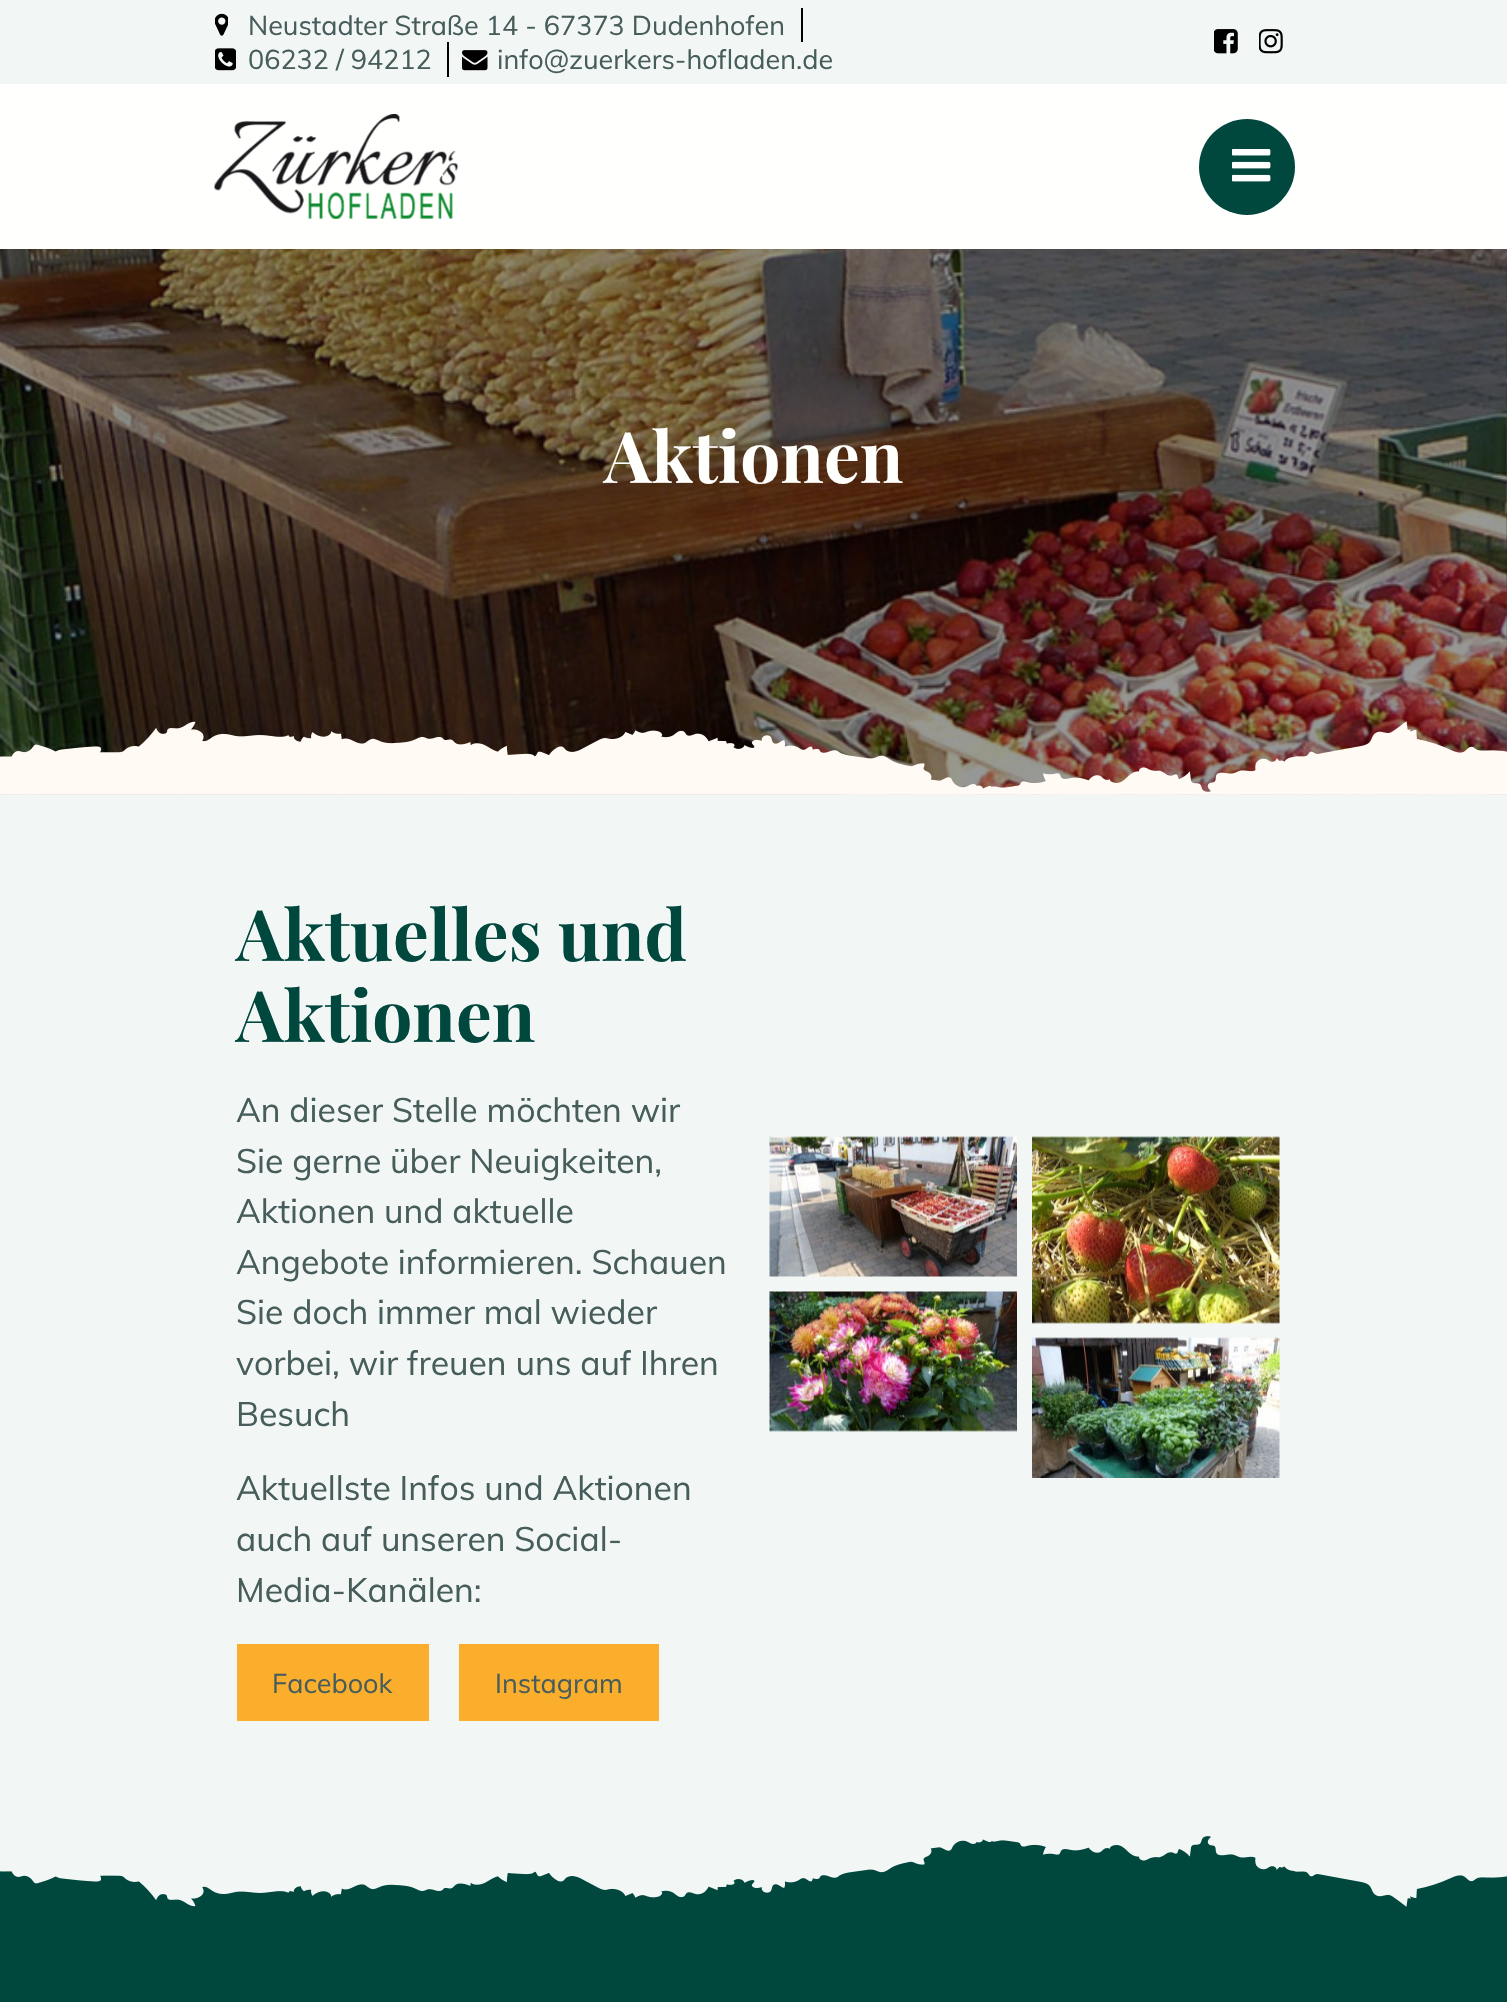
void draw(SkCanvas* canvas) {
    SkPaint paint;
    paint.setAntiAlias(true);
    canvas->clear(0xFFF2F7F5);
    canvas->drawImageRect(SkImages::DeferredFromEncodedData(SkData::MakeFromFileName("img1.png")), SkRect::MakeXYWH(215, 13, 13, 23), SkSamplingOptions());
    SkFont font1(fontMgr->matchFamilyStyle("Muli", SkFontStyle::Normal()), 27);
    font1.setSubpixel(true);
    paint.setColor(0xFF475D5B);
    canvas->drawString("Neustadter Straße 14 - 67373 Dudenhofen", 248, 35, font1, paint);
    paint.setColor(0xFF000000);
    canvas->drawRect(SkRect::MakeXYWH(801, 8, 2, 34), paint);
    canvas->drawImageRect(SkImages::DeferredFromEncodedData(SkData::MakeFromFileName("img2.png")), SkRect::MakeXYWH(215, 48, 21, 23), SkSamplingOptions());
    paint.setColor(0xFF475D5B);
    canvas->drawString("06232 / 94212", 248, 69, font1, paint);
    paint.setColor(0xFF000000);
    canvas->drawRect(SkRect::MakeXYWH(447, 42, 2, 35), paint);
    canvas->drawImageRect(SkImages::DeferredFromEncodedData(SkData::MakeFromFileName("img3.png")), SkRect::MakeXYWH(462, 50, 26, 21), SkSamplingOptions());
    paint.setColor(0xFF475D5B);
    canvas->drawString("info@zuerkers-hofladen.de", 497, 69, font1, paint);
    canvas->drawImageRect(SkImages::DeferredFromEncodedData(SkData::MakeFromFileName("img4.png")), SkRect::MakeXYWH(1214, 29, 24, 25), SkSamplingOptions());
    canvas->drawImageRect(SkImages::DeferredFromEncodedData(SkData::MakeFromFileName("img5.png")), SkRect::MakeXYWH(1259, 29, 24, 25), SkSamplingOptions());
    paint.setColor(0xFFFFFFFE);
    canvas->drawRect(SkRect::MakeXYWH(0, 84, 1507, 165), paint);
    canvas->drawImageRect(SkImages::DeferredFromEncodedData(SkData::MakeFromFileName("img6.png")), SkRect::MakeXYWH(214, 114, 245, 105), SkSamplingOptions());
    paint.setColor(0xFF00473E);
    canvas->drawCircle(1247, 167, 48, paint);
    canvas->drawImageRect(SkImages::DeferredFromEncodedData(SkData::MakeFromFileName("img7.png")), SkRect::MakeXYWH(1232, 149, 39, 33), SkSamplingOptions());
    canvas->drawImageRect(SkImages::DeferredFromEncodedData(SkData::MakeFromFileName("img8.png")), SkRect::MakeXYWH(1506, 249, 1, 546), SkSamplingOptions());
    canvas->drawImageRect(SkImages::DeferredFromEncodedData(SkData::MakeFromFileName("img9.png")), SkRect::MakeXYWH(0, 249, 1507, 546), SkSamplingOptions());
    SkFont font2(fontMgr->matchFamilyStyle("Playfair Display", SkFontStyle::Bold()), 71);
    font2.setSubpixel(true);
    paint.setColor(0xFFFFFFFE);
    canvas->drawString("Aktionen", 604, 483, font2, paint);
    canvas->drawImageRect(SkImages::DeferredFromEncodedData(SkData::MakeFromFileName("img10.png")), SkRect::MakeXYWH(0, 721, 1507, 74), SkSamplingOptions());
    paint.setColor(0xFF00473E);
    canvas->drawString("Aktuelles und", 236, 961, font2, paint);
    canvas->drawString("Aktionen", 236, 1042, font2, paint);
    SkFont font3(fontMgr->matchFamilyStyle("Muli", SkFontStyle::Normal()), 33.75f);
    font3.setSubpixel(true);
    paint.setColor(0xFF475D5B);
    canvas->drawString("An dieser Stelle möchten wir", 236, 1122, font3, paint);
    canvas->drawString("Sie gerne über Neuigkeiten,", 236, 1173, font3, paint);
    canvas->drawString("Aktionen und aktuelle", 236, 1223, font3, paint);
    canvas->drawString("Angebote informieren. Schauen", 236, 1274, font3, paint);
    canvas->drawString("Sie doch immer mal wieder", 236, 1324, font3, paint);
    canvas->drawString("vorbei, wir freuen uns auf Ihren", 236, 1375, font3, paint);
    canvas->drawString("Besuch", 236, 1426, font3, paint);
    canvas->drawString("Aktuellste Infos und Aktionen", 236, 1500, font3, paint);
    canvas->drawString("auch auf unseren Social-", 236, 1551, font3, paint);
    canvas->drawString("Media-Kanälen:", 236, 1602, font3, paint);
    paint.setColor(0xFFFAAE2C);
    canvas->drawRect(SkRect::MakeXYWH(237, 1644, 192, 77), paint);
    paint.setColor(0xFF475D5B);
    canvas->drawString("Facebook", 272, 1693, font1, paint);
    paint.setColor(0xFFFAAE2C);
    canvas->drawRect(SkRect::MakeXYWH(459, 1644, 200, 77), paint);
    paint.setColor(0xFF475D5B);
    canvas->drawString("Instagram", 495, 1693, font1, paint);
    canvas->drawImageRect(SkImages::DeferredFromEncodedData(SkData::MakeFromFileName("img11.png")), SkRect::MakeXYWH(769, 1136, 248, 141), SkSamplingOptions());
    canvas->drawImageRect(SkImages::DeferredFromEncodedData(SkData::MakeFromFileName("img12.png")), SkRect::MakeXYWH(1032, 1136, 248, 188), SkSamplingOptions());
    canvas->drawImageRect(SkImages::DeferredFromEncodedData(SkData::MakeFromFileName("img13.png")), SkRect::MakeXYWH(769, 1291, 248, 141), SkSamplingOptions());
    canvas->drawImageRect(SkImages::DeferredFromEncodedData(SkData::MakeFromFileName("img14.png")), SkRect::MakeXYWH(1032, 1337, 248, 141), SkSamplingOptions());
    paint.setColor(0xFF00473E);
    canvas->drawRect(SkRect::MakeXYWH(0, 1836, 1507, 166), paint);
    canvas->drawImageRect(SkImages::DeferredFromEncodedData(SkData::MakeFromFileName("img15.png")), SkRect::MakeXYWH(0, 1833, 1507, 74), SkSamplingOptions());
}
